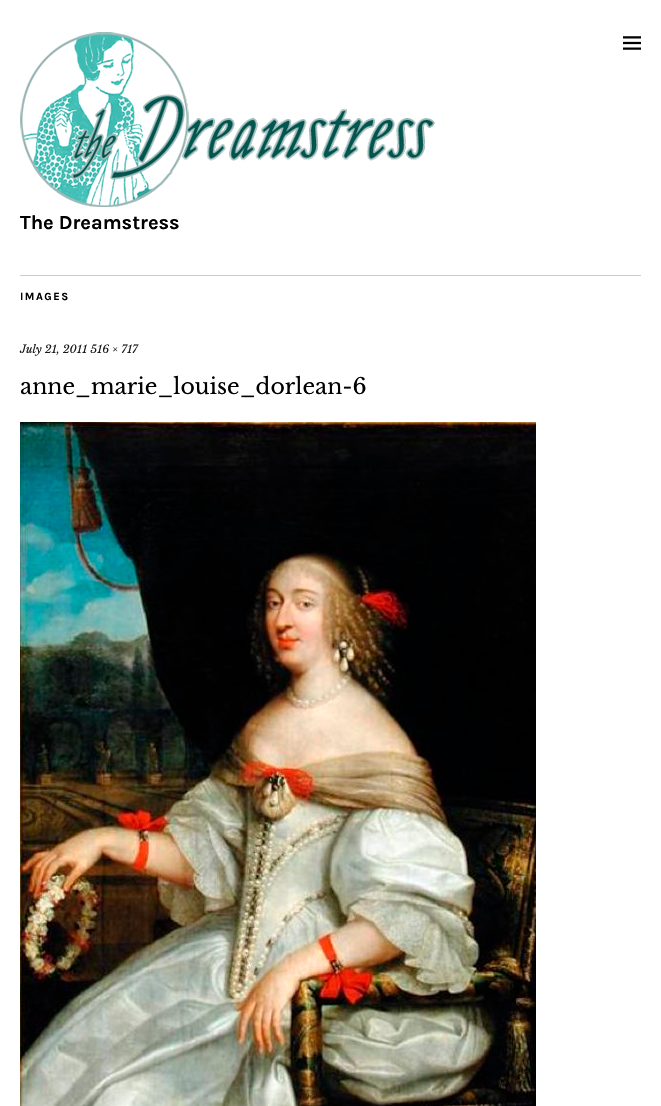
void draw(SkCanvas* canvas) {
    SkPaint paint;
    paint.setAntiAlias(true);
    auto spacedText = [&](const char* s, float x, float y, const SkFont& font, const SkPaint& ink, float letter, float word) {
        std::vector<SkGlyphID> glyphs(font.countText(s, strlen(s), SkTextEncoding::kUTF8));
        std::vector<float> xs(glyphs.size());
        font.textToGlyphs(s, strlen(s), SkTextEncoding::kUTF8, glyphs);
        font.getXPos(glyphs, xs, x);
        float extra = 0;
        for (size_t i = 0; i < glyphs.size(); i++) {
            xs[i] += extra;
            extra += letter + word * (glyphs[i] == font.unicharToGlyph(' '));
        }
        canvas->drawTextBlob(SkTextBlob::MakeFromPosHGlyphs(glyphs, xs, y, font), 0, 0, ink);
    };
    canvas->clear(0xFFFFFFFF);
    canvas->drawImageRect(SkImages::DeferredFromEncodedData(SkData::MakeFromFileName("img1.png")), SkRect::MakeXYWH(623, 36, 18, 14), SkSamplingOptions());
    canvas->drawImageRect(SkImages::DeferredFromEncodedData(SkData::MakeFromFileName("img2.png")), SkRect::MakeXYWH(20, 32, 415, 175), SkSamplingOptions());
    SkFont font1(fontMgr->matchFamilyStyle("Karla", SkFontStyle::Bold()), 20);
    font1.setSubpixel(true);
    paint.setColor(0xFF000000);
    canvas->drawString("The Dreamstress", 20, 229, font1, paint);
    paint.setColor(0xFFCCCCCC);
    canvas->drawRect(SkRect::MakeXYWH(20, 275, 621, 1), paint);
    SkFont font2(fontMgr->matchFamilyStyle("Karla", SkFontStyle::Bold()), 11);
    font2.setSubpixel(true);
    paint.setColor(0xFF000000);
    spacedText("IMAGES", 20, 300, font2, paint, 1.5f, 0);
    SkFont font3(fontMgr->matchFamilyStyle("Libre Baskerville", SkFontStyle::Italic()), 11);
    font3.setSubpixel(true);
    paint.setColor(0xFF191919);
    canvas->drawString("July 21, 2011 516 × 717", 20, 353, font3, paint);
    SkFont font4(fontMgr->matchFamilyStyle("Libre Baskerville", SkFontStyle::Normal()), 22);
    font4.setSubpixel(true);
    paint.setColor(0xFF000000);
    canvas->drawString("anne_marie_louise_dorlean-6", 20, 394, font4, paint);
    canvas->drawImageRect(SkImages::DeferredFromEncodedData(SkData::MakeFromFileName("img3.png")), SkRect::MakeXYWH(20, 422, 516, 684), SkSamplingOptions());
}
